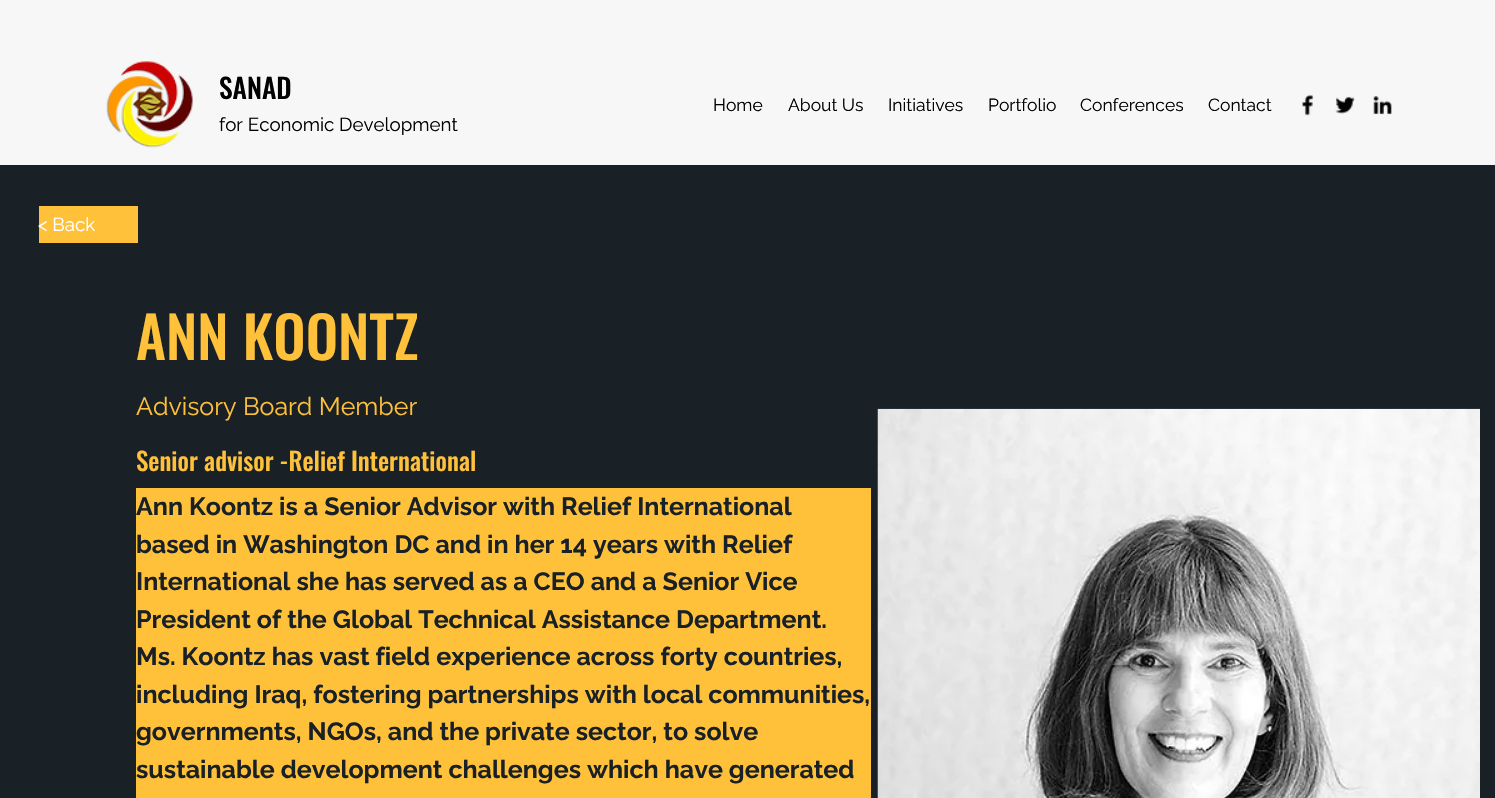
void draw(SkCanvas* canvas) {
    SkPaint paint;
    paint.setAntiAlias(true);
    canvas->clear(0xFF192127);
    paint.setColor(0xFFF7F7F7);
    canvas->drawRect(SkRect::MakeXYWH(0, 0, 1495, 165), paint);
    canvas->drawImageRect(SkImages::DeferredFromEncodedData(SkData::MakeFromFileName("img1.png")), SkRect::MakeXYWH(106, 61, 87, 87), SkSamplingOptions());
    SkFont font1(fontMgr->matchFamilyStyle("Oswald", SkFontStyle(500, SkFontStyle::kNormal_Width, SkFontStyle::kUpright_Slant)), 27.5f);
    font1.setSubpixel(true);
    paint.setColor(0xFF000000);
    canvas->drawString("SANAD", 219, 99, font1, paint);
    SkFont font2(fontMgr->matchFamilyStyle("Raleway", SkFontStyle::Normal()), 18.75f);
    font2.setSubpixel(true);
    canvas->drawString("for Economic Development", 219, 131, font2, paint);
    SkFont font3(fontMgr->matchFamilyStyle("Raleway", SkFontStyle::Normal()), 17.5f);
    font3.setSubpixel(true);
    canvas->drawString("Home", 713, 111, font3, paint);
    canvas->drawString("About Us", 788, 111, font3, paint);
    canvas->drawString("Initiatives", 888, 111, font3, paint);
    canvas->drawString("Portfolio", 988, 111, font3, paint);
    canvas->drawString("Conferences", 1080, 111, font3, paint);
    canvas->drawString("Contact", 1208, 111, font3, paint);
    canvas->drawImageRect(SkImages::DeferredFromEncodedData(SkData::MakeFromFileName("img2.png")), SkRect::MakeXYWH(1302, 94, 12, 22), SkSamplingOptions());
    canvas->drawImageRect(SkImages::DeferredFromEncodedData(SkData::MakeFromFileName("img3.png")), SkRect::MakeXYWH(1335, 96, 20, 18), SkSamplingOptions());
    canvas->drawImageRect(SkImages::DeferredFromEncodedData(SkData::MakeFromFileName("img4.png")), SkRect::MakeXYWH(1373, 96, 19, 19), SkSamplingOptions());
    paint.setColor(0xFFFFC03A);
    canvas->drawRect(SkRect::MakeXYWH(39, 206, 99, 37), paint);
    paint.setColor(0xFFFFFFFF);
    canvas->drawString("< Back", 38, 231, font2, paint);
    SkFont font4(fontMgr->matchFamilyStyle("Oswald", SkFontStyle(500, SkFontStyle::kNormal_Width, SkFontStyle::kUpright_Slant)), 57.5f);
    font4.setSubpixel(true);
    paint.setColor(0xFFFFC03A);
    canvas->drawString("ANN KOONTZ", 136, 360, font4, paint);
    SkFont font5(fontMgr->matchFamilyStyle("Raleway", SkFontStyle::Normal()), 25);
    font5.setSubpixel(true);
    canvas->drawString("Advisory Board Member", 136, 415, font5, paint);
    SkFont font6(fontMgr->matchFamilyStyle("Oswald", SkFontStyle(500, SkFontStyle::kNormal_Width, SkFontStyle::kUpright_Slant)), 25);
    font6.setSubpixel(true);
    canvas->drawString("Senior advisor -Relief International", 136, 471, font6, paint);
    canvas->drawRect(SkRect::MakeXYWH(136, 488, 735, 310), paint);
    SkFont font7(fontMgr->matchFamilyStyle("Raleway", SkFontStyle::Bold()), 25);
    font7.setSubpixel(true);
    paint.setColor(0xFF192127);
    canvas->drawString("Ann Koontz is a Senior Advisor with Relief International", 136, 515, font7, paint);
    canvas->drawString("based in Washington DC and in her 14 years with Relief", 136, 553, font7, paint);
    canvas->drawString("International she has served as a CEO and a Senior Vice", 136, 590, font7, paint);
    canvas->drawString("President of the Global Technical Assistance Department.", 136, 628, font7, paint);
    canvas->drawString("Ms. Koontz has vast field experience across forty countries,", 136, 665, font7, paint);
    canvas->drawString("including Iraq, fostering partnerships with local communities,", 136, 703, font7, paint);
    canvas->drawString("governments, NGOs, and the private sector, to solve", 136, 740, font7, paint);
    canvas->drawString("sustainable development challenges which have generated", 136, 778, font7, paint);
    canvas->drawImageRect(SkImages::DeferredFromEncodedData(SkData::MakeFromFileName("img5.png")), SkRect::MakeXYWH(877, 408, 603, 390), SkSamplingOptions());
}
